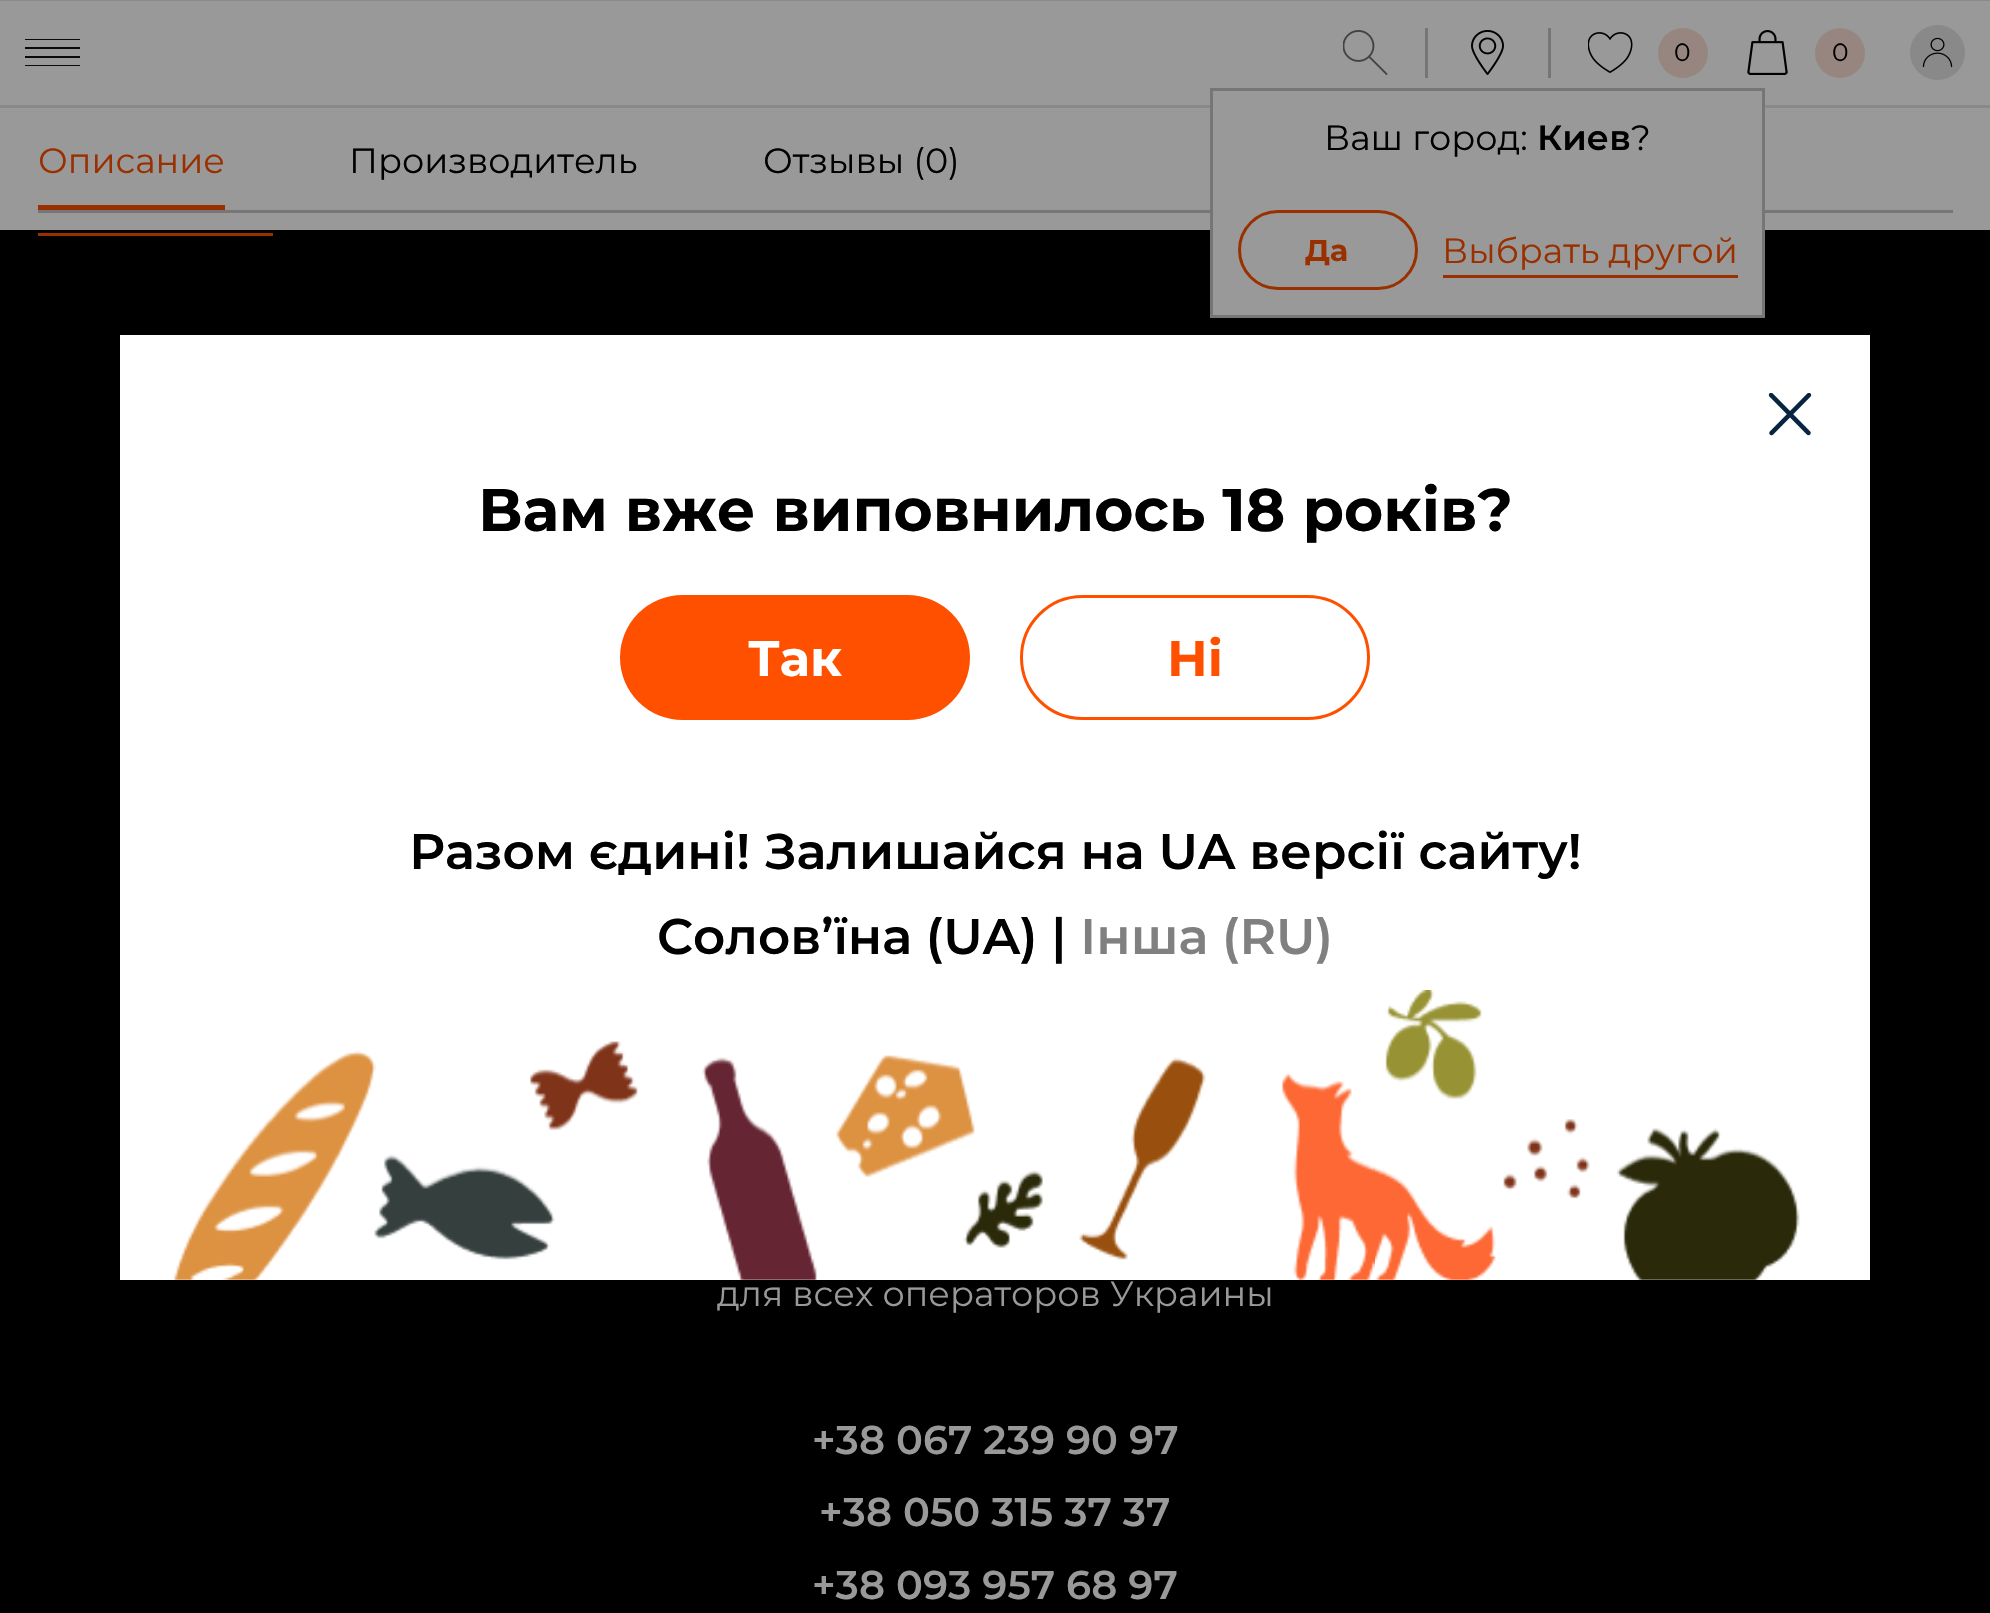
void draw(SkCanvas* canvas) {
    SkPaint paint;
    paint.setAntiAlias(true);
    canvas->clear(0xFF999999);
    paint.setColor(0xFF767676);
    canvas->drawRect(SkRect::MakeXYWH(38, 210, 1915, 3), paint);
    SkFont font1(fontMgr->matchFamilyStyle("Montserrat", SkFontStyle::Normal()), 35);
    font1.setSubpixel(true);
    paint.setColor(0xFF993000);
    canvas->drawString("Описание", 38, 173, font1, paint);
    canvas->drawRect(SkRect::MakeXYWH(38, 205, 187, 5), paint);
    paint.setColor(0xFF000000);
    canvas->drawString("Производитель", 349, 173, font1, paint);
    canvas->drawString("Отзывы (0)", 763, 173, font1, paint);
    canvas->drawRect(SkRect::MakeXYWH(0, 230, 1990, 1383), paint);
    paint.setColor(0xFF993000);
    canvas->drawRect(SkRect::MakeXYWH(38, 233, 235, 3), paint);
    paint.setColor(0xFF898989);
    canvas->drawRect(SkRect::MakeXYWH(0, 105, 1990, 3), paint);
    canvas->drawRect(SkRect::MakeXYWH(0, 0, 1990, 1), paint);
    paint.setColor(0xFF0B0A0A);
    canvas->drawRect(SkRect::MakeXYWH(25, 39, 55, 1), paint);
    canvas->drawRect(SkRect::MakeXYWH(25, 47, 55, 2), paint);
    canvas->drawRect(SkRect::MakeXYWH(25, 56, 55, 2), paint);
    canvas->drawRect(SkRect::MakeXYWH(25, 65, 55, 1), paint);
    canvas->drawImageRect(SkImages::DeferredFromEncodedData(SkData::MakeFromFileName("img1.png")), SkRect::MakeXYWH(1343, 30, 45, 45), SkSamplingOptions());
    paint.setColor(0xFF767676);
    canvas->drawRect(SkRect::MakeXYWH(1425, 28, 3, 50), paint);
    canvas->drawRect(SkRect::MakeXYWH(1548, 28, 3, 50), paint);
    canvas->drawImageRect(SkImages::DeferredFromEncodedData(SkData::MakeFromFileName("img2.png")), SkRect::MakeXYWH(1588, 32, 45, 41), SkSamplingOptions());
    paint.setColor(0xFF96867F);
    canvas->drawCircle(1683, 53, 25, paint);
    SkFont font2(fontMgr->matchFamilyStyle("Montserrat", SkFontStyle::Normal()), 25);
    font2.setSubpixel(true);
    paint.setColor(0xFF000000);
    canvas->drawString("0", 1674, 61, font2, paint);
    canvas->drawImageRect(SkImages::DeferredFromEncodedData(SkData::MakeFromFileName("img3.png")), SkRect::MakeXYWH(1747, 30, 41, 45), SkSamplingOptions());
    paint.setColor(0xFF96867F);
    canvas->drawCircle(1840, 53, 25, paint);
    paint.setColor(0xFF000000);
    canvas->drawString("0", 1832, 61, font2, paint);
    canvas->drawImageRect(SkImages::DeferredFromEncodedData(SkData::MakeFromFileName("img4.png")), SkRect::MakeXYWH(1471, 30, 33, 45), SkSamplingOptions());
    paint.setColor(0xFF999999);
    canvas->drawRect(SkRect::MakeXYWH(1213, 105, 549, 210), paint);
    paint.setStyle(SkPaint::kStroke_Style);
    paint.setStrokeWidth(3);
    paint.setColor(0xFF767676);
    canvas->drawRect(SkRect::MakeXYWH(1211.5f, 89.5f, 552, 227), paint);
    paint.setStyle(SkPaint::kFill_Style);
    paint.setColor(0xFF000000);
    canvas->drawString("Ваш город:", 1324, 150, font1, paint);
    SkFont font3(fontMgr->matchFamilyStyle("Montserrat", SkFontStyle(600, SkFontStyle::kNormal_Width, SkFontStyle::kUpright_Slant)), 35);
    font3.setSubpixel(true);
    canvas->drawString("Киев", 1537, 150, font3, paint);
    canvas->drawString("?", 1631, 150, font1, paint);
    paint.setStyle(SkPaint::kStroke_Style);
    paint.setColor(0xFF993000);
    canvas->drawRoundRect(SkRect::MakeXYWH(1239.5f, 211.5f, 177, 77), 38.5f, 38.5f, paint);
    SkFont font4(fontMgr->matchFamilyStyle("Montserrat", SkFontStyle::Bold()), 30);
    font4.setSubpixel(true);
    paint.setStyle(SkPaint::kFill_Style);
    canvas->drawString("Да", 1305, 261, font4, paint);
    canvas->drawString("Выбрать другой", 1442, 263, font1, paint);
    canvas->drawRect(SkRect::MakeXYWH(1443, 275, 295, 3), paint);
    canvas->drawImageRect(SkImages::DeferredFromEncodedData(SkData::MakeFromFileName("img5.png")), SkRect::MakeXYWH(1910, 25, 55, 55), SkSamplingOptions());
    paint.setColor(0xFF999999);
    canvas->drawString("для всех операторов Украины", 717, 1306, font1, paint);
    SkFont font5(fontMgr->matchFamilyStyle("Montserrat", SkFontStyle(600, SkFontStyle::kNormal_Width, SkFontStyle::kUpright_Slant)), 40);
    font5.setSubpixel(true);
    canvas->drawString("+38 067 239 90 97", 812, 1454, font5, paint);
    canvas->drawString("+38 050 315 37 37", 819, 1526, font5, paint);
    canvas->drawString("+38 093 957 68 97", 812, 1599, font5, paint);
    paint.setColor(0xFFFFFFFF);
    canvas->drawRect(SkRect::MakeXYWH(120, 335, 1750, 945), paint);
    canvas->drawImageRect(SkImages::DeferredFromEncodedData(SkData::MakeFromFileName("img6.png")), SkRect::MakeXYWH(1768, 393, 44, 43), SkSamplingOptions());
    SkFont font6(fontMgr->matchFamilyStyle("Montserrat", SkFontStyle::Bold()), 60);
    font6.setSubpixel(true);
    paint.setColor(0xFF000000);
    canvas->drawString("Вам вже виповнилось 18 років?", 478, 531, font6, paint);
    paint.setColor(0xFFFF5000);
    canvas->drawRoundRect(SkRect::MakeXYWH(620, 595, 350, 125), 62.5f, 62.5f, paint);
    SkFont font7(fontMgr->matchFamilyStyle("Montserrat", SkFontStyle::Bold()), 50);
    font7.setSubpixel(true);
    paint.setColor(0xFFFFFFFF);
    canvas->drawString("Так", 748, 676, font7, paint);
    paint.setStyle(SkPaint::kStroke_Style);
    paint.setColor(0xFFFF5000);
    canvas->drawRoundRect(SkRect::MakeXYWH(1021.5f, 596.5f, 347, 122), 61, 61, paint);
    paint.setStyle(SkPaint::kFill_Style);
    canvas->drawString("Ні", 1167, 676, font7, paint);
    SkFont font8(fontMgr->matchFamilyStyle("Montserrat", SkFontStyle(600, SkFontStyle::kNormal_Width, SkFontStyle::kUpright_Slant)), 50);
    font8.setSubpixel(true);
    paint.setColor(0xFF000000);
    canvas->drawString("Разом єдині! Залишайся на UA версії сайту!", 409, 869, font8, paint);
    canvas->drawString("Солов’їна (UA) |", 657, 954, font8, paint);
    paint.setColor(0xFF808080);
    canvas->drawString("Інша (RU)", 1080, 954, font8, paint);
    canvas->drawImageRect(SkImages::DeferredFromEncodedData(SkData::MakeFromFileName("img7.png")), SkRect::MakeXYWH(174, 990, 1626, 290), SkSamplingOptions());
}
